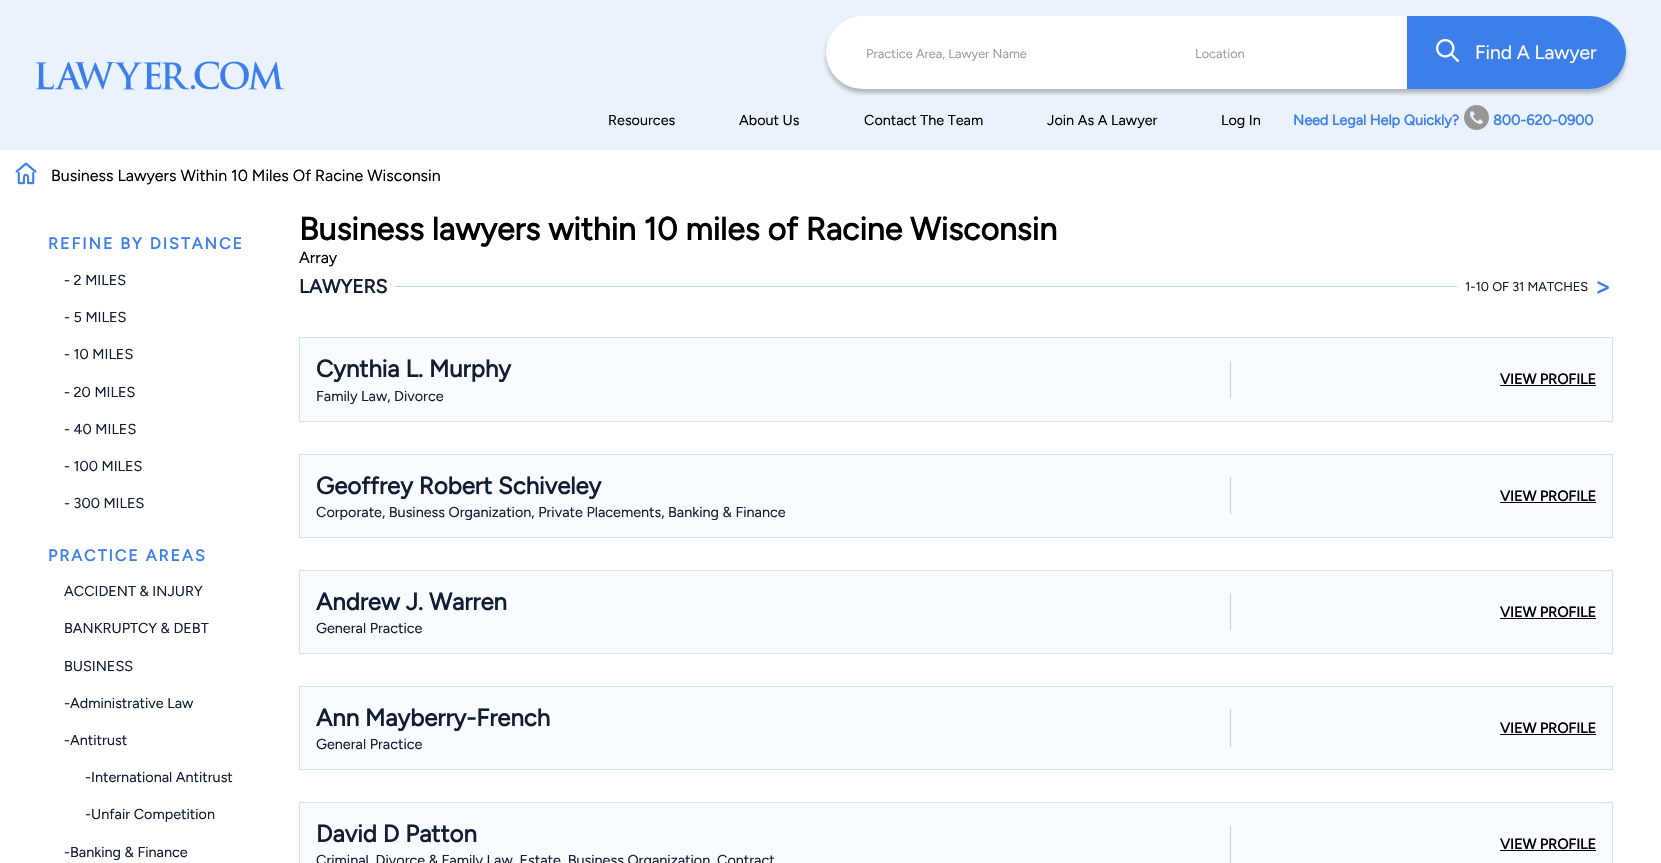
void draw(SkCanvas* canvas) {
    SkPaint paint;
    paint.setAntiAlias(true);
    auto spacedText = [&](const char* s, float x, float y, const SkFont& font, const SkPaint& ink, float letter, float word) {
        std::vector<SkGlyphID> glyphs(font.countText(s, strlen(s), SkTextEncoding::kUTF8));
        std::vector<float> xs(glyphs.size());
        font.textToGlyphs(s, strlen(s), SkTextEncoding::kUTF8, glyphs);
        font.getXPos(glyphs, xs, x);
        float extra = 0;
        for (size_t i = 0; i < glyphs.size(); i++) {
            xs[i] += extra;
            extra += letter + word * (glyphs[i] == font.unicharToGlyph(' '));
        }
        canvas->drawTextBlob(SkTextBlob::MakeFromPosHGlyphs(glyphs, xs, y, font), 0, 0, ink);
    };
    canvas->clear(0xFFFFFFFF);
    paint.setColor(0xFFEAF2FB);
    canvas->drawRect(SkRect::MakeXYWH(0, 0, 1661, 150), paint);
    canvas->drawImageRect(SkImages::DeferredFromEncodedData(SkData::MakeFromFileName("img1.png")), SkRect::MakeXYWH(35, 61, 250, 29), SkSamplingOptions());
    paint.setColor(0x40000000);
    paint.setMaskFilter(SkMaskFilter::MakeBlur(kNormal_SkBlurStyle, 2));
    canvas->drawRoundRect(SkRect::MakeXYWH(826, 20, 800, 73), 36.5f, 36.5f, paint);
    paint.setMaskFilter(nullptr);
    paint.setColor(0xFFFFFFFF);
    canvas->drawRoundRect(SkRect::MakeXYWH(826, 16, 800, 73), 36.5f, 36.5f, paint);
    SkFont font1(fontMgr->matchFamilyStyle("Figtree", SkFontStyle::Normal()), 12.75f);
    font1.setSubpixel(true);
    paint.setColor(0xFF989EA7);
    canvas->drawString("Practice Area, Lawyer Name", 866, 58, font1, paint);
    canvas->drawString("Location", 1195, 58, font1, paint);
    paint.setColor(0xFF3C7FEB);
    canvas->drawPath(SkPathBuilder().moveTo(1407, 16).lineTo(1589.5f, 16).cubicTo(1609.5f, 16, 1626, 32.5f, 1626, 52.5f).cubicTo(1626, 72.5f, 1609.5f, 89, 1589.5f, 89).lineTo(1407, 89).close().detach(), paint);
    canvas->drawImageRect(SkImages::DeferredFromEncodedData(SkData::MakeFromFileName("img2.png")), SkRect::MakeXYWH(1436, 39, 23, 23), SkSamplingOptions());
    SkFont font2(fontMgr->matchFamilyStyle("Figtree", SkFontStyle::Normal()), 19.25f);
    font2.setSubpixel(true);
    paint.setColor(0xFFFFFFFF);
    canvas->drawString("Find A Lawyer", 1475, 59, font2, paint);
    SkFont font3(fontMgr->matchFamilyStyle("Figtree", SkFontStyle::Normal()), 14.4f);
    font3.setSubpixel(true);
    paint.setColor(0xFF000000);
    canvas->drawString("Resources", 608, 125, font3, paint);
    canvas->drawString("About Us", 739, 125, font3, paint);
    canvas->drawString("Contact The Team", 864, 125, font3, paint);
    canvas->drawString("Join As A Lawyer", 1047, 125, font3, paint);
    canvas->drawString("Log In", 1221, 125, font3, paint);
    SkFont font4(fontMgr->matchFamilyStyle("Figtree", SkFontStyle::Bold()), 14.4f);
    font4.setSubpixel(true);
    paint.setColor(0xFF3C7FEB);
    canvas->drawString("Need Legal Help Quickly?", 1293, 125, font4, paint);
    canvas->drawImageRect(SkImages::DeferredFromEncodedData(SkData::MakeFromFileName("img3.png")), SkRect::MakeXYWH(1464, 105, 25, 25), SkSamplingOptions());
    canvas->drawString("800-620-0900", 1493, 125, font4, paint);
    canvas->drawImageRect(SkImages::DeferredFromEncodedData(SkData::MakeFromFileName("img4.png")), SkRect::MakeXYWH(15, 162, 22, 23), SkSamplingOptions());
    SkFont font5(fontMgr->matchFamilyStyle("Figtree", SkFontStyle::Normal()), 16);
    font5.setSubpixel(true);
    paint.setColor(0xFF000000);
    canvas->drawString("Business Lawyers Within 10 Miles Of Racine Wisconsin", 51, 181, font5, paint);
    SkFont font6(fontMgr->matchFamilyStyle("Figtree", SkFontStyle::Bold()), 16);
    font6.setSubpixel(true);
    paint.setColor(0xFF3C7FEB);
    spacedText("REFINE BY DISTANCE", 48, 249, font6, paint, 2, 0);
    paint.setColor(0xFF101D32);
    canvas->drawString("- 2 MILES", 64, 285, font3, paint);
    canvas->drawString("- 5 MILES", 64, 322, font3, paint);
    canvas->drawString("- 10 MILES", 64, 359, font3, paint);
    canvas->drawString("- 20 MILES", 64, 397, font3, paint);
    canvas->drawString("- 40 MILES", 64, 434, font3, paint);
    canvas->drawString("- 100 MILES", 64, 471, font3, paint);
    canvas->drawString("- 300 MILES", 64, 508, font3, paint);
    paint.setColor(0xFF3C7FEB);
    spacedText("PRACTICE AREAS", 48, 561, font6, paint, 2, 0);
    paint.setColor(0xFF101D32);
    canvas->drawString("ACCIDENT & INJURY", 64, 596, font3, paint);
    canvas->drawString("BANKRUPTCY & DEBT", 64, 633, font3, paint);
    canvas->drawString("BUSINESS", 64, 671, font3, paint);
    canvas->drawString("-Administrative Law", 64, 708, font3, paint);
    canvas->drawString("-Antitrust", 64, 745, font3, paint);
    canvas->drawString("-International Antitrust", 85, 782, font3, paint);
    canvas->drawString("-Unfair Competition", 85, 819, font3, paint);
    canvas->drawString("-Banking & Finance", 64, 857, font3, paint);
    SkFont font7(fontMgr->matchFamilyStyle("Figtree", SkFontStyle::Bold()), 32);
    font7.setSubpixel(true);
    paint.setColor(0xFF000000);
    canvas->drawString("Business lawyers within 10 miles of Racine Wisconsin", 299, 240, font7, paint);
    canvas->drawString("Array", 299, 263, font5, paint);
    SkFont font8(fontMgr->matchFamilyStyle("Figtree", SkFontStyle::Bold()), 19.25f);
    font8.setSubpixel(true);
    paint.setColor(0xFF101D32);
    canvas->drawString("LAWYERS", 299, 293, font8, paint);
    paint.setColor(0xFFB4D4F8);
    canvas->drawRect(SkRect::MakeXYWH(395, 286, 1062, 1), paint);
    paint.setColor(0xFF101D32);
    canvas->drawString("1-10 OF 31 MATCHES", 1465, 291, font1, paint);
    SkFont font9(fontMgr->matchFamilyStyle("Figtree", SkFontStyle::Normal()), 32);
    font9.setSubpixel(true);
    paint.setColor(0xFF3C7FEB);
    canvas->drawString(">", 1593, 297, font9, paint);
    paint.setColor(0xFFF8FBFF);
    canvas->drawRect(SkRect::MakeXYWH(299.5f, 337.5f, 1313, 84), paint);
    paint.setStyle(SkPaint::kStroke_Style);
    paint.setStrokeWidth(1);
    paint.setColor(0xFFCCE1FA);
    canvas->drawRect(SkRect::MakeXYWH(299.5f, 337.5f, 1313, 84), paint);
    SkFont font10(fontMgr->matchFamilyStyle("Figtree", SkFontStyle::Bold()), 24);
    font10.setSubpixel(true);
    paint.setStyle(SkPaint::kFill_Style);
    paint.setColor(0xFF101D32);
    canvas->drawString("Cynthia L. Murphy", 316, 377, font10, paint);
    canvas->drawString("Family Law, Divorce", 316, 401, font3, paint);
    paint.setColor(0xFFB4D4F8);
    canvas->drawRect(SkRect::MakeXYWH(1230, 361, 1, 37), paint);
    paint.setColor(0xFF000000);
    canvas->drawString("VIEW PROFILE", 1500, 384, font4, paint);
    canvas->drawRect(SkRect::MakeXYWH(1500, 385, 96, 1), paint);
    paint.setColor(0xFFF8FBFF);
    canvas->drawRect(SkRect::MakeXYWH(299.5f, 454.5f, 1313, 83), paint);
    paint.setStyle(SkPaint::kStroke_Style);
    paint.setColor(0xFFCCE1FA);
    canvas->drawRect(SkRect::MakeXYWH(299.5f, 454.5f, 1313, 83), paint);
    paint.setStyle(SkPaint::kFill_Style);
    paint.setColor(0xFF101D32);
    canvas->drawString("Geoffrey Robert Schiveley", 316, 494, font10, paint);
    canvas->drawString("Corporate, Business Organization, Private Placements, Banking & Finance", 316, 517, font3, paint);
    paint.setColor(0xFFB4D4F8);
    canvas->drawRect(SkRect::MakeXYWH(1230, 477, 1, 37), paint);
    paint.setColor(0xFF000000);
    canvas->drawString("VIEW PROFILE", 1500, 501, font4, paint);
    canvas->drawRect(SkRect::MakeXYWH(1500, 502, 96, 1), paint);
    paint.setColor(0xFFF8FBFF);
    canvas->drawRect(SkRect::MakeXYWH(299.5f, 570.5f, 1313, 83), paint);
    paint.setStyle(SkPaint::kStroke_Style);
    paint.setColor(0xFFCCE1FA);
    canvas->drawRect(SkRect::MakeXYWH(299.5f, 570.5f, 1313, 83), paint);
    paint.setStyle(SkPaint::kFill_Style);
    paint.setColor(0xFF101D32);
    canvas->drawString("Andrew J. Warren", 316, 610, font10, paint);
    canvas->drawString("General Practice", 316, 633, font3, paint);
    paint.setColor(0xFFB4D4F8);
    canvas->drawRect(SkRect::MakeXYWH(1230, 593, 1, 37), paint);
    paint.setColor(0xFF000000);
    canvas->drawString("VIEW PROFILE", 1500, 617, font4, paint);
    canvas->drawRect(SkRect::MakeXYWH(1500, 618, 96, 1), paint);
    paint.setColor(0xFFF8FBFF);
    canvas->drawRect(SkRect::MakeXYWH(299.5f, 686.5f, 1313, 83), paint);
    paint.setStyle(SkPaint::kStroke_Style);
    paint.setColor(0xFFCCE1FA);
    canvas->drawRect(SkRect::MakeXYWH(299.5f, 686.5f, 1313, 83), paint);
    paint.setStyle(SkPaint::kFill_Style);
    paint.setColor(0xFF101D32);
    canvas->drawString("Ann Mayberry-French", 316, 726, font10, paint);
    canvas->drawString("General Practice", 316, 749, font3, paint);
    paint.setColor(0xFFB4D4F8);
    canvas->drawRect(SkRect::MakeXYWH(1230, 709, 1, 38), paint);
    paint.setColor(0xFF000000);
    canvas->drawString("VIEW PROFILE", 1500, 733, font4, paint);
    canvas->drawRect(SkRect::MakeXYWH(1500, 734, 96, 1), paint);
    paint.setColor(0xFFF8FBFF);
    canvas->drawRect(SkRect::MakeXYWH(299.5f, 802.5f, 1313, 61), paint);
    paint.setStyle(SkPaint::kStroke_Style);
    paint.setColor(0xFFCCE1FA);
    canvas->drawRect(SkRect::MakeXYWH(299.5f, 802.5f, 1313, 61), paint);
    paint.setStyle(SkPaint::kFill_Style);
    paint.setColor(0xFF101D32);
    canvas->drawString("David D Patton", 316, 842, font10, paint);
    canvas->drawString("Criminal, Divorce & Family Law, Estate, Business Organization, Contract", 316, 865, font3, paint);
    paint.setColor(0xFFB4D4F8);
    canvas->drawRect(SkRect::MakeXYWH(1230, 826, 1, 37), paint);
    paint.setColor(0xFF000000);
    canvas->drawString("VIEW PROFILE", 1500, 849, font4, paint);
    canvas->drawRect(SkRect::MakeXYWH(1500, 850, 96, 1), paint);
}
